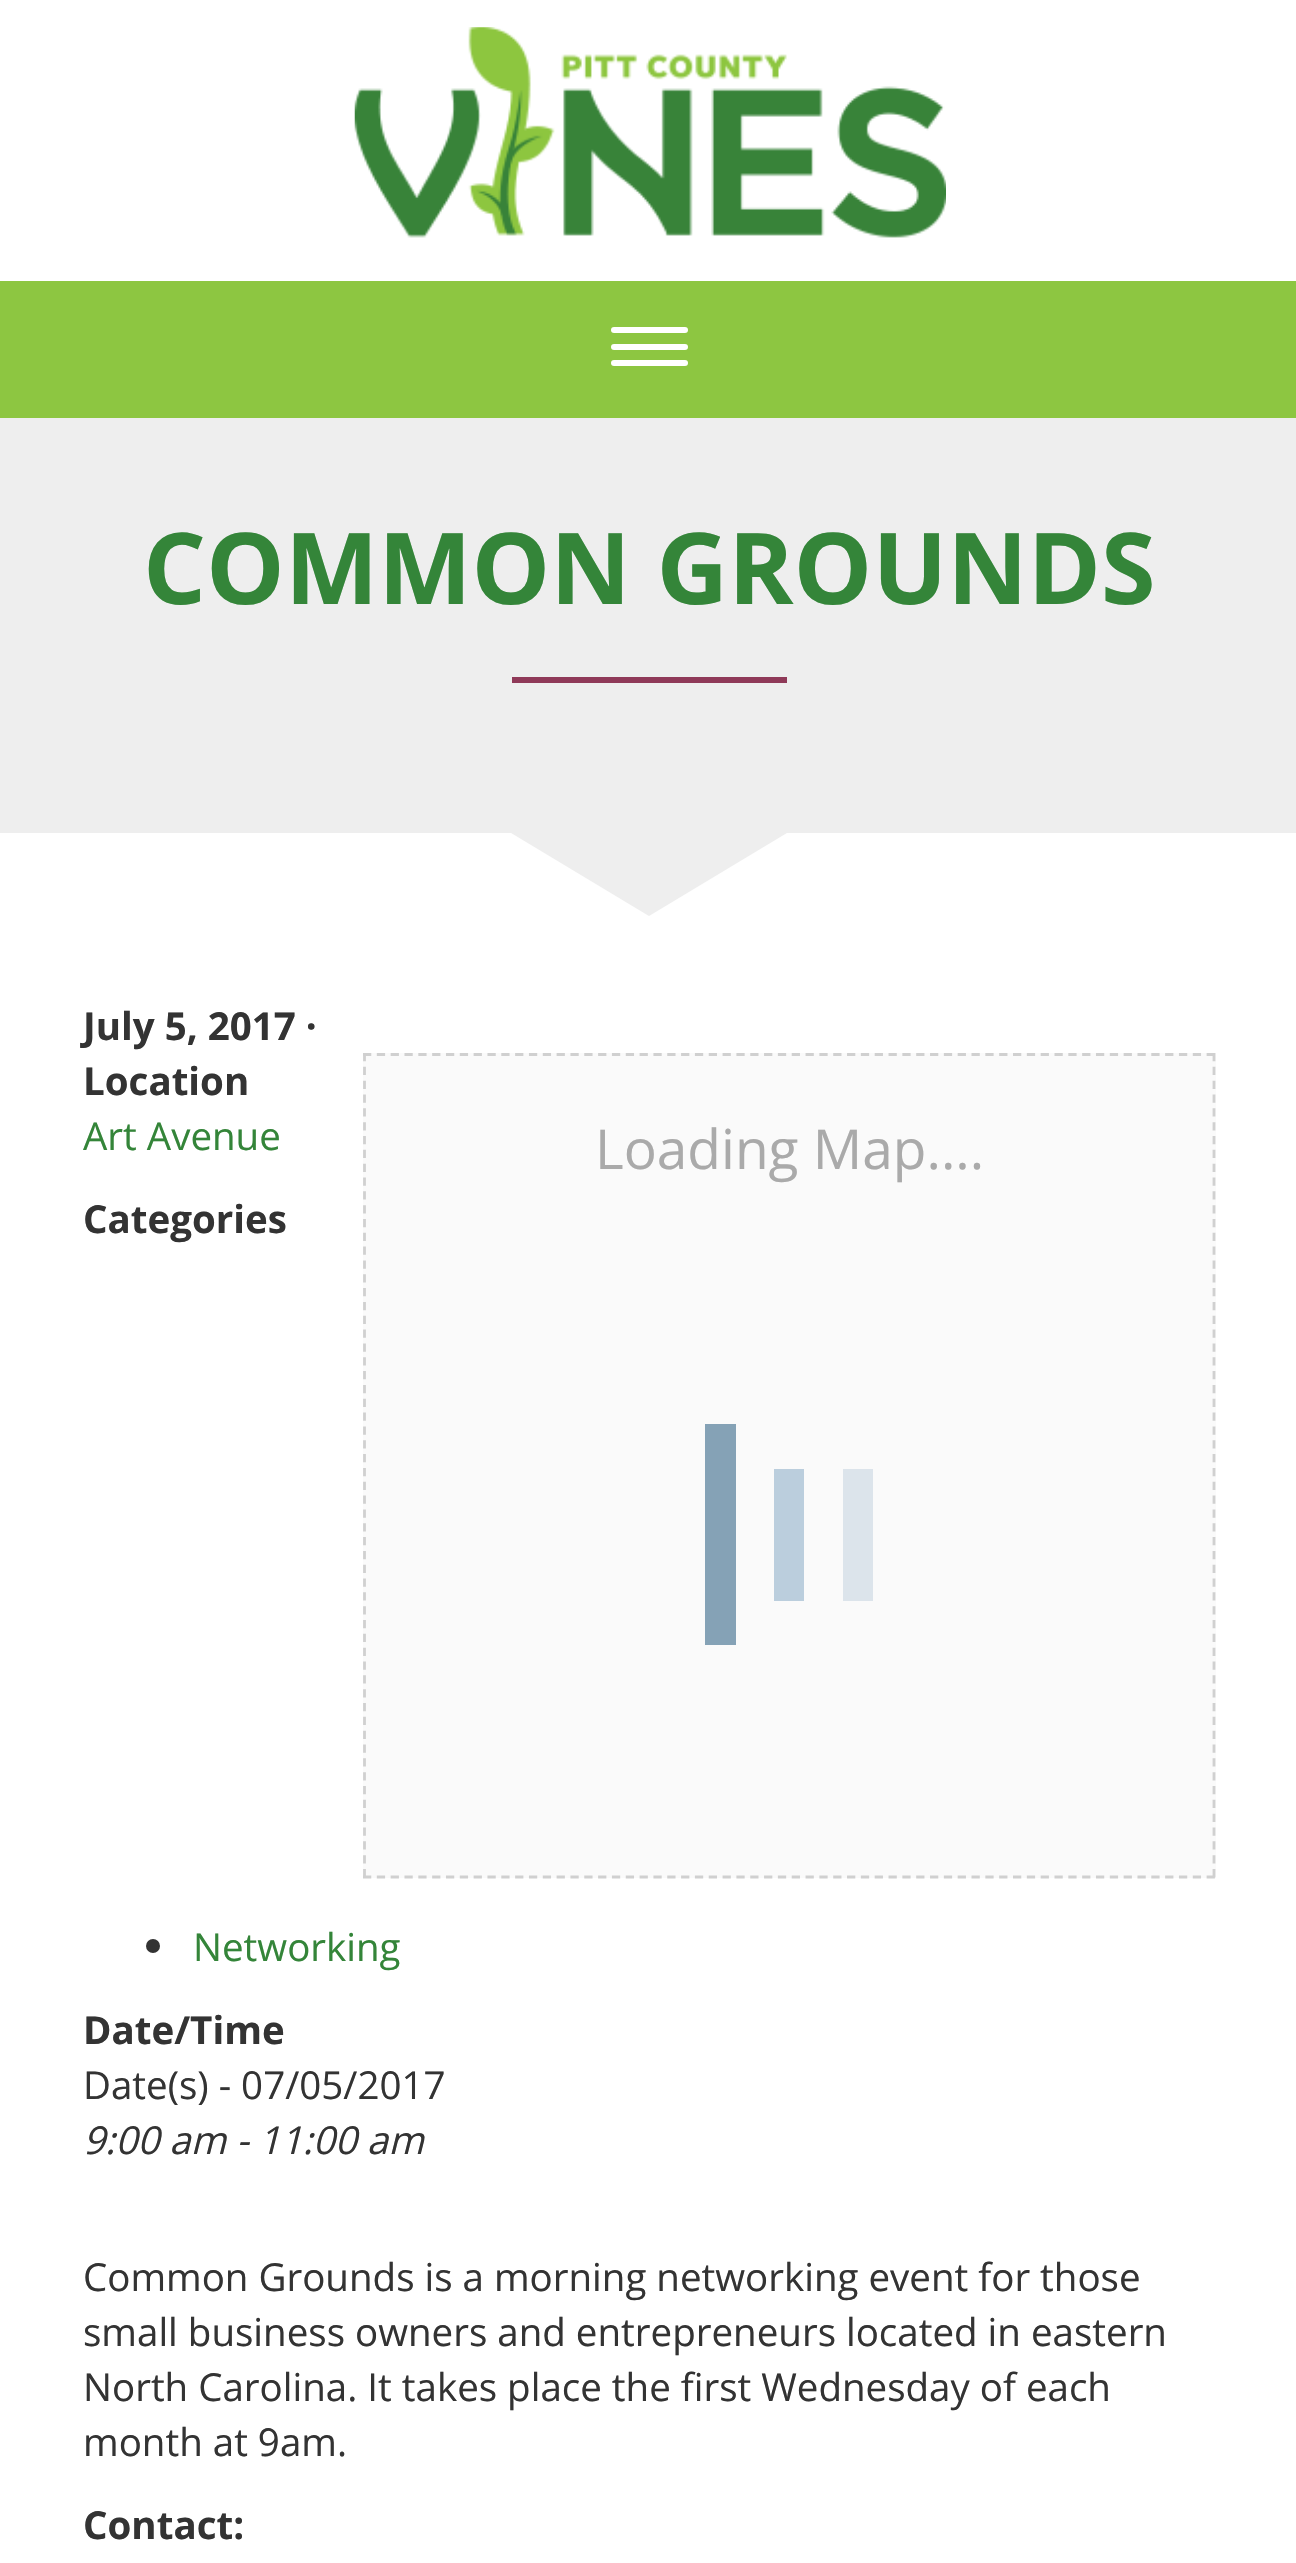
void draw(SkCanvas* canvas) {
    SkPaint paint;
    paint.setAntiAlias(true);
    canvas->clear(0xFFFFFFFF);
    canvas->drawImageRect(SkImages::DeferredFromEncodedData(SkData::MakeFromFileName("img1.png")), SkRect::MakeXYWH(354, 27, 592, 211), SkSamplingOptions());
    paint.setColor(0xFF8DC641);
    canvas->drawRect(SkRect::MakeXYWH(0, 281, 1296, 137), paint);
    paint.setColor(0xFFFFFFFF);
    canvas->drawRoundRect(SkRect::MakeXYWH(611, 327, 77, 6), 3, 3, paint);
    canvas->drawRoundRect(SkRect::MakeXYWH(611, 344, 77, 6), 3, 3, paint);
    canvas->drawRoundRect(SkRect::MakeXYWH(611, 360, 77, 6), 3, 3, paint);
    paint.setColor(0xFFEEEEEE);
    canvas->drawRect(SkRect::MakeXYWH(0, 418, 1296, 415), paint);
    SkFont font1(fontMgr->matchFamilyStyle("Open Sans", SkFontStyle::Bold()), 99);
    font1.setSubpixel(true);
    paint.setColor(0xFF348539);
    canvas->drawString("COMMON GROUNDS", 143, 604, font1, paint);
    paint.setColor(0xFF8F3958);
    canvas->drawRect(SkRect::MakeXYWH(512, 677, 275, 6), paint);
    paint.setColor(0xFFEEEEEE);
    canvas->drawPath(SkPathBuilder().moveTo(443, 792).lineTo(855, 792).lineTo(649, 916).close().detach(), paint);
    SkFont font2(fontMgr->matchFamilyStyle("Open Sans", SkFontStyle::Bold()), 38.5f);
    font2.setSubpixel(true);
    paint.setColor(0xFF333333);
    canvas->drawString("July 5, 2017 ·", 83, 1040, font2, paint);
    canvas->drawString("Location", 83, 1095, font2, paint);
    SkFont font3(fontMgr->matchFamilyStyle("Open Sans", SkFontStyle::Normal()), 38.5f);
    font3.setSubpixel(true);
    paint.setColor(0xFF348539);
    canvas->drawString("Art Avenue", 83, 1150, font3, paint);
    paint.setColor(0xFFFAFAFA);
    canvas->drawRect(SkRect::MakeXYWH(363, 1053, 853, 825), paint);
    paint.setStyle(SkPaint::kStroke_Style);
    paint.setStrokeWidth(2.8f);
    paint.setColor(0xFFD0D0D0);
    paint.setPathEffect(SkDashPathEffect::Make({{8.25f, 5.58f}}, 0));
    canvas->drawPath(SkPathBuilder().moveTo(363, 1054.5f).lineTo(1215.5f, 1054.5f).detach(), paint);
    paint.setPathEffect(nullptr);
    paint.setPathEffect(SkDashPathEffect::Make({{8.25f, 5.58f}}, 0));
    canvas->drawPath(SkPathBuilder().moveTo(1214, 1053).lineTo(1214, 1878).detach(), paint);
    paint.setPathEffect(nullptr);
    paint.setPathEffect(SkDashPathEffect::Make({{8.25f, 5.58f}}, 0));
    canvas->drawPath(SkPathBuilder().moveTo(363, 1877).lineTo(1215.5f, 1877).detach(), paint);
    paint.setPathEffect(nullptr);
    paint.setPathEffect(SkDashPathEffect::Make({{8.25f, 5.58f}}, 0));
    canvas->drawPath(SkPathBuilder().moveTo(364.5f, 1053).lineTo(364.5f, 1878).detach(), paint);
    paint.setPathEffect(nullptr);
    SkFont font4(fontMgr->matchFamilyStyle("Open Sans", SkFontStyle::Normal()), 55);
    font4.setSubpixel(true);
    paint.setStyle(SkPaint::kFill_Style);
    paint.setColor(0xFFAAAAAA);
    canvas->drawString("Loading Map....", 595, 1169, font4, paint);
    paint.setColor(0xFF85A2B6);
    canvas->drawRect(SkRect::MakeXYWH(705, 1424, 31, 221), paint);
    paint.setColor(0xFFBBCEDD);
    canvas->drawRect(SkRect::MakeXYWH(774, 1469, 30, 132), paint);
    paint.setColor(0xFFDCE4EB);
    canvas->drawRect(SkRect::MakeXYWH(843, 1469, 30, 132), paint);
    paint.setColor(0xFF333333);
    canvas->drawString("Categories", 83, 1233, font2, paint);
    canvas->drawCircle(153, 1946, 7, paint);
    paint.setColor(0xFF348539);
    canvas->drawString("Networking", 193, 1961, font3, paint);
    paint.setColor(0xFF333333);
    canvas->drawString("Date/Time", 83, 2044, font2, paint);
    canvas->drawString("Date(s) - 07/05/2017", 83, 2099, font3, paint);
    SkFont font5(fontMgr->matchFamilyStyle("Open Sans", SkFontStyle::Italic()), 38.5f);
    font5.setSubpixel(true);
    canvas->drawString("9:00 am - 11:00 am", 83, 2154, font5, paint);
    canvas->drawString("Common Grounds is a morning networking event for those", 83, 2291, font3, paint);
    canvas->drawString("small business owners and entrepreneurs located in eastern", 83, 2346, font3, paint);
    canvas->drawString("North Carolina. It takes place the first Wednesday of each", 83, 2401, font3, paint);
    canvas->drawString("month at 9am.", 83, 2456, font3, paint);
    canvas->drawString("Contact:", 83, 2539, font2, paint);
}
